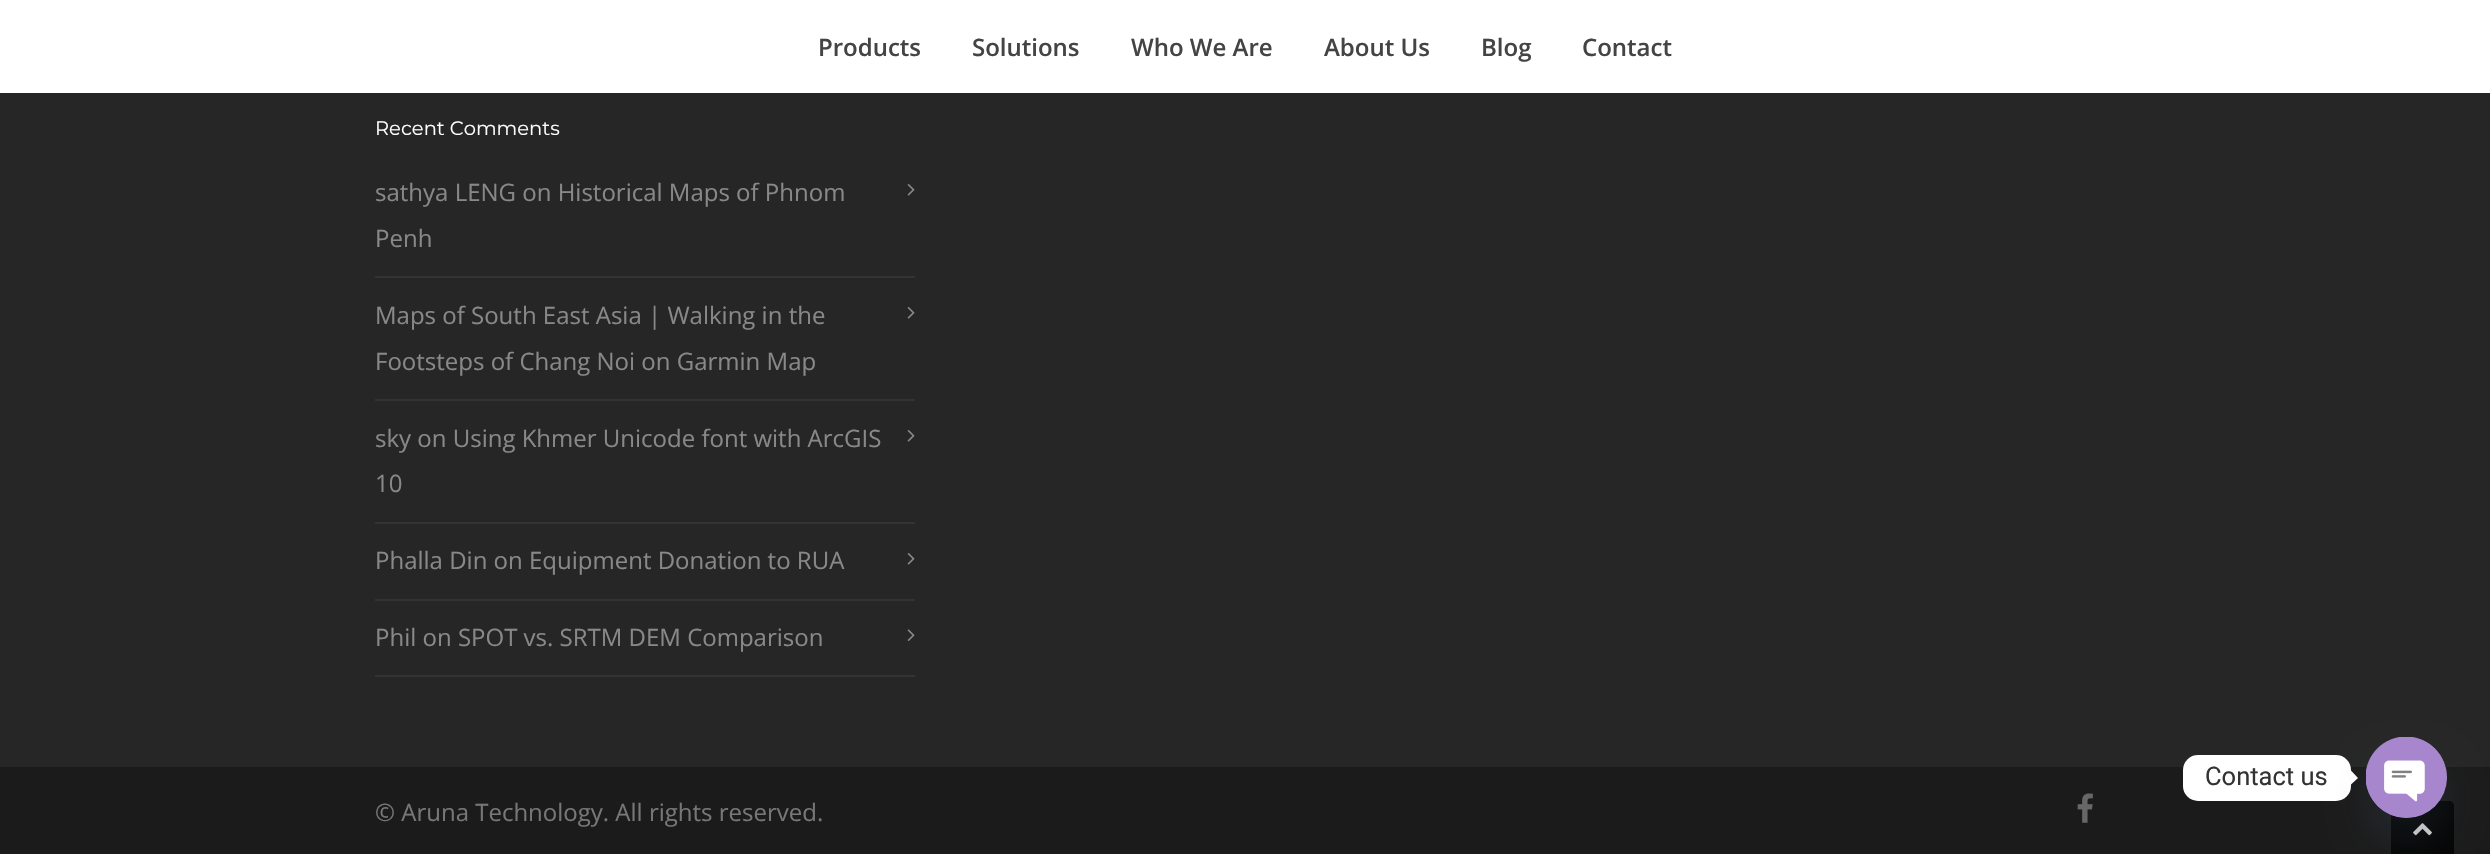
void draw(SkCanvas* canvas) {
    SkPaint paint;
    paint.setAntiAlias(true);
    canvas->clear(0xFF262626);
    paint.setColor(0xFFFFFFFF);
    canvas->drawRect(SkRect::MakeXYWH(0, 0, 2490, 93), paint);
    SkFont font1(fontMgr->matchFamilyStyle("Open Sans", SkFontStyle(600, SkFontStyle::kNormal_Width, SkFontStyle::kUpright_Slant)), 24);
    font1.setSubpixel(true);
    paint.setColor(0xFF444444);
    canvas->drawString("Products", 818, 56, font1, paint);
    canvas->drawString("Solutions", 972, 56, font1, paint);
    canvas->drawString("Who We Are", 1131, 56, font1, paint);
    canvas->drawString("About Us", 1324, 56, font1, paint);
    canvas->drawString("Blog", 1481, 56, font1, paint);
    canvas->drawString("Contact", 1582, 56, font1, paint);
    SkFont font2(fontMgr->matchFamilyStyle("Montserrat", SkFontStyle::Normal()), 19.5f);
    font2.setSubpixel(true);
    paint.setColor(0xFFFFFFFF);
    canvas->drawString("Recent Comments", 375, 135, font2, paint);
    paint.setColor(0xFF333333);
    canvas->drawRect(SkRect::MakeXYWH(375, 276, 540, 2), paint);
    SkFont font3(fontMgr->matchFamilyStyle("Open Sans", SkFontStyle::Normal()), 24);
    font3.setSubpixel(true);
    paint.setColor(0xFF888888);
    canvas->drawString("sathya LENG on Historical Maps of Phnom", 375, 201, font3, paint);
    canvas->drawImageRect(SkImages::DeferredFromEncodedData(SkData::MakeFromFileName("img1.png")), SkRect::MakeXYWH(907, 184, 8, 12), SkSamplingOptions());
    canvas->drawString("Penh", 375, 247, font3, paint);
    paint.setColor(0xFF333333);
    canvas->drawRect(SkRect::MakeXYWH(375, 399, 540, 2), paint);
    paint.setColor(0xFF888888);
    canvas->drawString("Maps of South East Asia | Walking in the", 375, 324, font3, paint);
    canvas->drawImageRect(SkImages::DeferredFromEncodedData(SkData::MakeFromFileName("img1.png")), SkRect::MakeXYWH(907, 307, 8, 12), SkSamplingOptions());
    canvas->drawString("Footsteps of Chang Noi on Garmin Map", 375, 370, font3, paint);
    paint.setColor(0xFF333333);
    canvas->drawRect(SkRect::MakeXYWH(375, 522, 540, 2), paint);
    paint.setColor(0xFF888888);
    canvas->drawString("sky on Using Khmer Unicode font with ArcGIS", 375, 447, font3, paint);
    canvas->drawImageRect(SkImages::DeferredFromEncodedData(SkData::MakeFromFileName("img1.png")), SkRect::MakeXYWH(907, 430, 8, 12), SkSamplingOptions());
    canvas->drawString("10", 375, 492, font3, paint);
    paint.setColor(0xFF333333);
    canvas->drawRect(SkRect::MakeXYWH(375, 599, 540, 2), paint);
    paint.setColor(0xFF888888);
    canvas->drawString("Phalla Din on Equipment Donation to RUA", 375, 569, font3, paint);
    canvas->drawImageRect(SkImages::DeferredFromEncodedData(SkData::MakeFromFileName("img1.png")), SkRect::MakeXYWH(907, 553, 8, 12), SkSamplingOptions());
    paint.setColor(0xFF333333);
    canvas->drawRect(SkRect::MakeXYWH(375, 675, 540, 2), paint);
    paint.setColor(0xFF888888);
    canvas->drawString("Phil on SPOT vs. SRTM DEM Comparison", 375, 646, font3, paint);
    canvas->drawImageRect(SkImages::DeferredFromEncodedData(SkData::MakeFromFileName("img2.png")), SkRect::MakeXYWH(907, 629, 8, 12), SkSamplingOptions());
    paint.setColor(0xFF1B1B1B);
    canvas->drawRect(SkRect::MakeXYWH(0, 767, 2490, 87), paint);
    paint.setColor(0xFF777777);
    canvas->drawString("© Aruna Technology. All rights reserved.", 375, 821, font3, paint);
    canvas->drawImageRect(SkImages::DeferredFromEncodedData(SkData::MakeFromFileName("img3.png")), SkRect::MakeXYWH(2077, 793, 16, 30), SkSamplingOptions());
    paint.setColor(0xFFFFFFFF);
    canvas->drawRoundRect(SkRect::MakeXYWH(2183, 755, 168, 46), 15, 15, paint);
    SkFont font4(fontMgr->matchFamilyStyle("Roboto", SkFontStyle::Normal()), 25.5f);
    font4.setSubpixel(true);
    paint.setColor(0xFF333333);
    canvas->drawString("Contact us", 2205, 785, font4, paint);
    paint.setColor(0xFFFFFFFF);
    canvas->drawPath(SkPathBuilder().moveTo(2350.5f, 785).lineTo(2350.5f, 770).lineTo(2358, 778).close().detach(), paint);
    paint.setColor(0xFF050505);
    canvas->drawPath(SkPathBuilder().moveTo(2396, 801).lineTo(2449, 801).cubicTo(2452, 801, 2454, 803, 2454, 806).lineTo(2454, 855).lineTo(2391, 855).lineTo(2391, 806).cubicTo(2391, 803, 2393, 801, 2396, 801).close().detach(), paint);
    canvas->drawImageRect(SkImages::DeferredFromEncodedData(SkData::MakeFromFileName("img5.png")), SkRect::MakeXYWH(2413, 823, 19, 13), SkSamplingOptions());
    paint.setColor(0x2949687E);
    paint.setMaskFilter(SkMaskFilter::MakeBlur(kNormal_SkBlurStyle, 18));
    canvas->drawRoundRect(SkRect::MakeXYWH(2366, 761, 81, 81), 40.5f, 40.5f, paint);
    paint.setMaskFilter(nullptr);
    paint.setColor(0xFFA886CD);
    canvas->drawCircle(2406.5f, 777.5f, 40.5f, paint);
    canvas->drawImageRect(SkImages::DeferredFromEncodedData(SkData::MakeFromFileName("img4.png")), SkRect::MakeXYWH(2366, 737, 81, 81), SkSamplingOptions());
}
